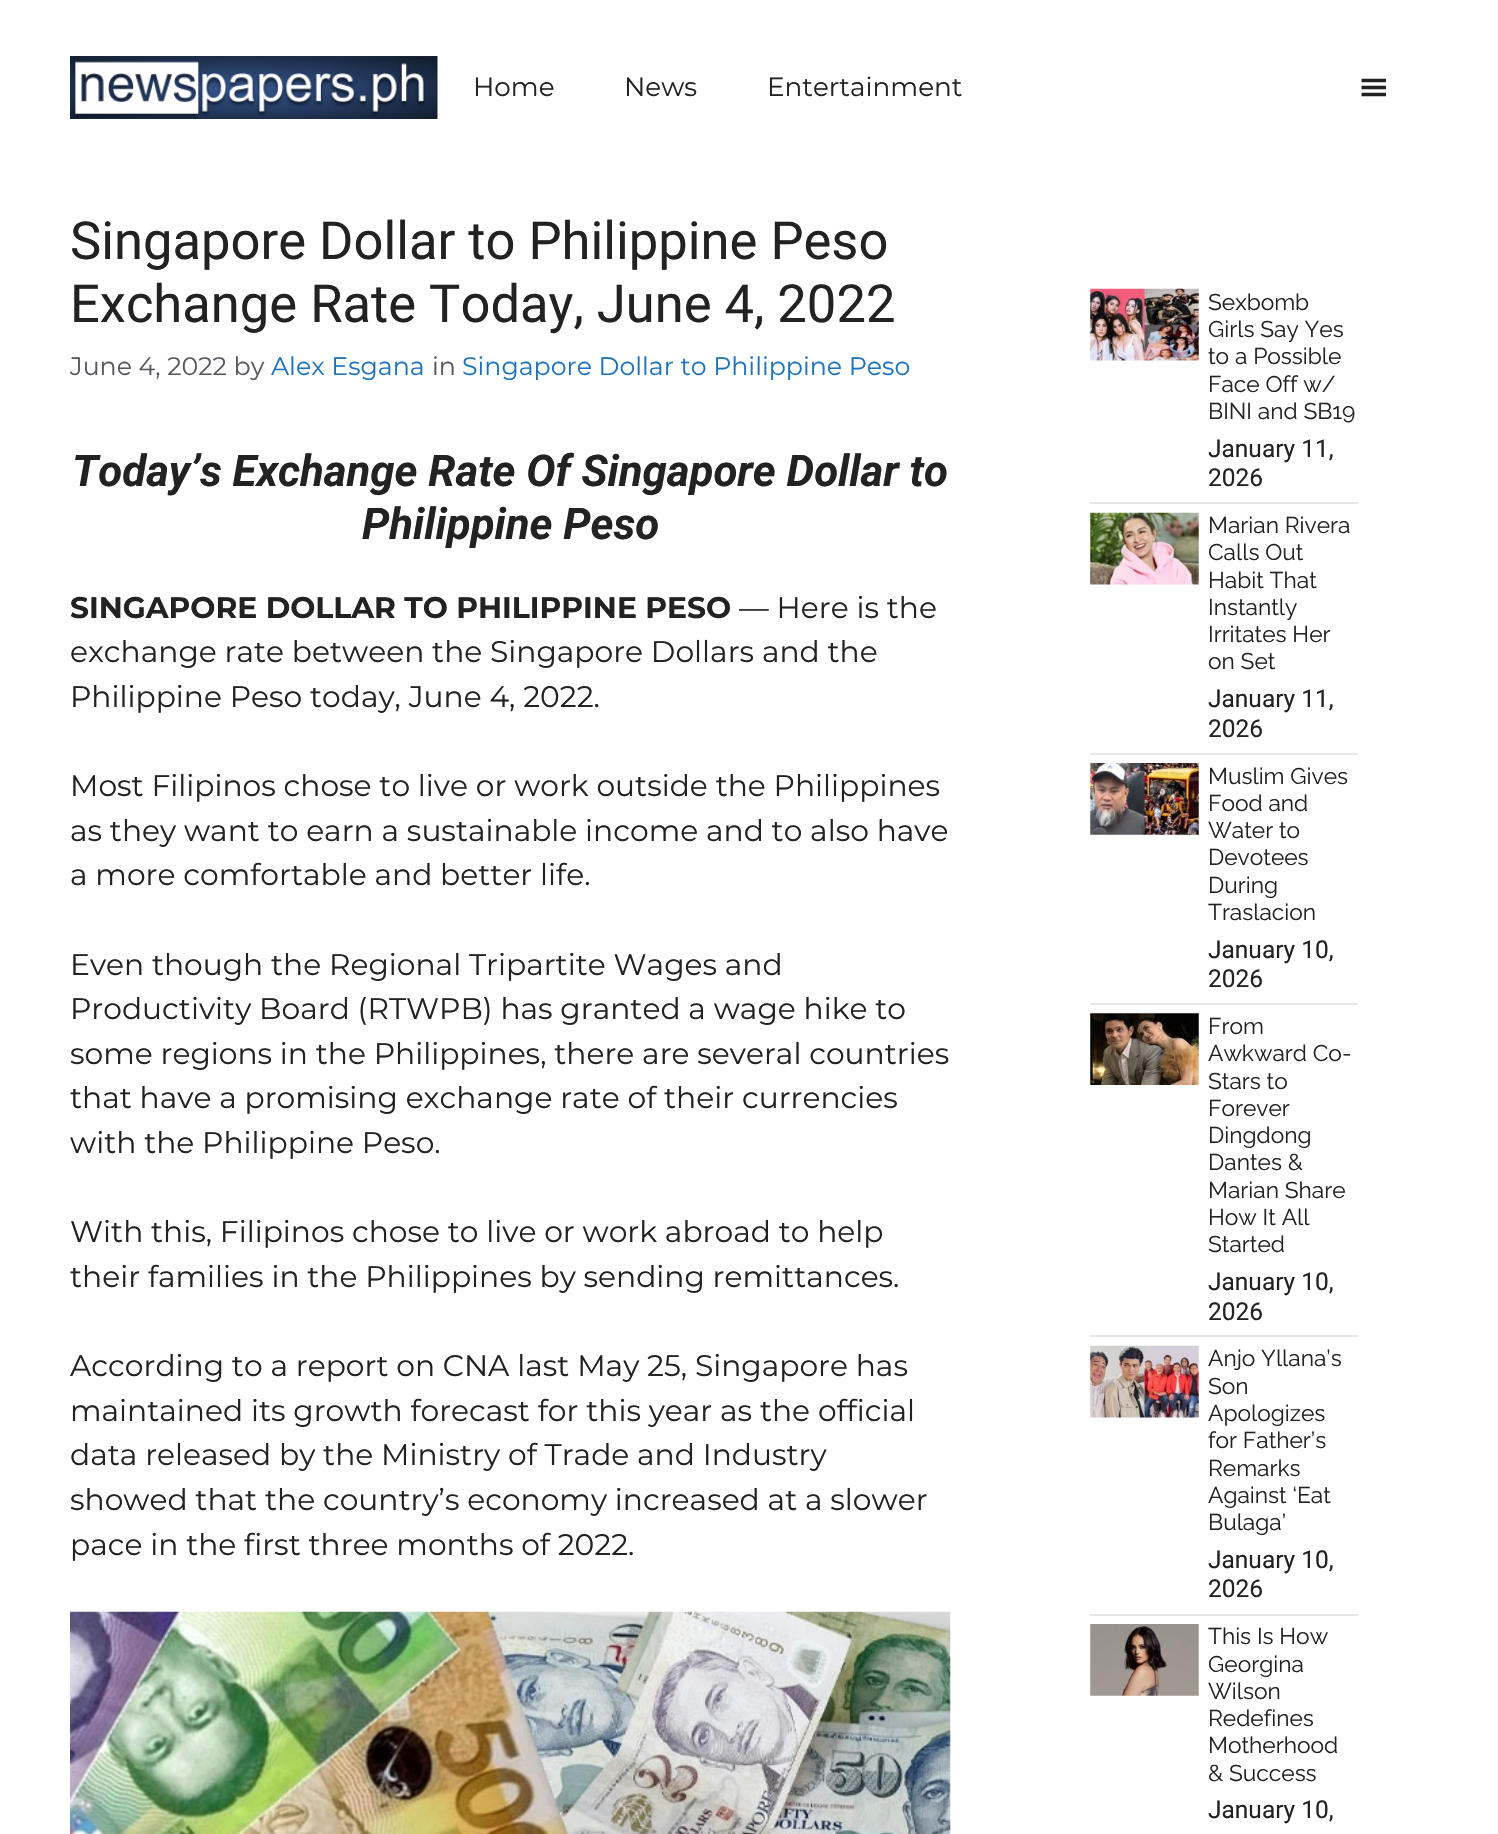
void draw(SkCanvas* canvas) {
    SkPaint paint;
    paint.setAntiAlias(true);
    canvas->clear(0xFFFFFFFF);
    canvas->drawImageRect(SkImages::DeferredFromEncodedData(SkData::MakeFromFileName("img1.png")), SkRect::MakeXYWH(70, 56, 368, 63), SkSamplingOptions());
    SkFont font1(fontMgr->matchFamilyStyle("Montserrat", SkFontStyle::Normal()), 26.25f);
    font1.setSubpixel(true);
    paint.setColor(0xFF222222);
    canvas->drawString("Home", 473, 96, font1, paint);
    canvas->drawString("News", 624, 96, font1, paint);
    canvas->drawString("Entertainment", 767, 96, font1, paint);
    canvas->drawImageRect(SkImages::DeferredFromEncodedData(SkData::MakeFromFileName("img2.png")), SkRect::MakeXYWH(1361, 78, 25, 19), SkSamplingOptions());
    SkFont font2(fontMgr->matchFamilyStyle("Roboto", SkFontStyle::Normal()), 52.5f);
    font2.setSubpixel(true);
    canvas->drawString("Singapore Dollar to Philippine Peso", 70, 259, font2, paint);
    canvas->drawString("Exchange Rate Today, June 4, 2022", 70, 322, font2, paint);
    SkFont font3(fontMgr->matchFamilyStyle("Montserrat", SkFontStyle::Normal()), 25.25f);
    font3.setSubpixel(true);
    paint.setColor(0xFF575760);
    canvas->drawString("June 4, 2022 by", 70, 375, font3, paint);
    paint.setColor(0xFF1E73BE);
    canvas->drawString("Alex Esgana", 271, 375, font3, paint);
    paint.setColor(0xFF575760);
    canvas->drawString("in", 432, 375, font3, paint);
    paint.setColor(0xFF1E73BE);
    canvas->drawString("Singapore Dollar to Philippine Peso", 462, 375, font3, paint);
    SkFont font4(fontMgr->matchFamilyStyle("Roboto", SkFontStyle::BoldItalic()), 43.75f);
    font4.setSubpixel(true);
    paint.setColor(0xFF222222);
    canvas->drawString("Today’s Exchange Rate Of Singapore Dollar to", 72, 486, font4, paint);
    canvas->drawString("Philippine Peso", 362, 539, font4, paint);
    SkFont font5(fontMgr->matchFamilyStyle("Montserrat", SkFontStyle::Bold()), 29.75f);
    font5.setSubpixel(true);
    canvas->drawString("SINGAPORE DOLLAR TO PHILIPPINE PESO", 70, 618, font5, paint);
    SkFont font6(fontMgr->matchFamilyStyle("Montserrat", SkFontStyle::Normal()), 29.75f);
    font6.setSubpixel(true);
    canvas->drawString("— Here is the", 739, 618, font6, paint);
    canvas->drawString("exchange rate between the Singapore Dollars and the", 70, 662, font6, paint);
    canvas->drawString("Philippine Peso today, June 4, 2022.", 70, 707, font6, paint);
    canvas->drawString("Most Filipinos chose to live or work outside the Philippines", 70, 796, font6, paint);
    canvas->drawString("as they want to earn a sustainable income and to also have", 70, 841, font6, paint);
    canvas->drawString("a more comfortable and better life.", 70, 885, font6, paint);
    canvas->drawString("Even though the Regional Tripartite Wages and", 70, 975, font6, paint);
    canvas->drawString("Productivity Board (RTWPB) has granted a wage hike to", 70, 1019, font6, paint);
    canvas->drawString("some regions in the Philippines, there are several countries", 70, 1064, font6, paint);
    canvas->drawString("that have a promising exchange rate of their currencies", 70, 1108, font6, paint);
    canvas->drawString("with the Philippine Peso.", 70, 1153, font6, paint);
    canvas->drawString("With this, Filipinos chose to live or work abroad to help", 70, 1242, font6, paint);
    canvas->drawString("their families in the Philippines by sending remittances.", 70, 1287, font6, paint);
    canvas->drawString("According to a report on CNA last May 25, Singapore has", 70, 1376, font6, paint);
    canvas->drawString("maintained its growth forecast for this year as the official", 70, 1421, font6, paint);
    canvas->drawString("data released by the Ministry of Trade and Industry", 70, 1465, font6, paint);
    canvas->drawString("showed that the country’s economy increased at a slower", 70, 1510, font6, paint);
    canvas->drawString("pace in the first three months of 2022.", 70, 1555, font6, paint);
    canvas->drawImageRect(SkImages::DeferredFromEncodedData(SkData::MakeFromFileName("img3.png")), SkRect::MakeXYWH(70, 1611, 881, 223), SkSamplingOptions());
    paint.setColor(0xFFE6E6E6);
    canvas->drawRect(SkRect::MakeXYWH(1090, 502, 268, 2), paint);
    canvas->drawImageRect(SkImages::DeferredFromEncodedData(SkData::MakeFromFileName("img4.png")), SkRect::MakeXYWH(1090, 288, 109, 73), SkSamplingOptions());
    SkFont font7(fontMgr->matchFamilyStyle("Raleway", SkFontStyle::Normal()), 22.75f);
    font7.setSubpixel(true);
    paint.setColor(0xFF222222);
    canvas->drawString("Sexbomb", 1208, 310, font7, paint);
    canvas->drawString("Girls Say Yes", 1208, 337, font7, paint);
    canvas->drawString("to a Possible", 1208, 364, font7, paint);
    canvas->drawString("Face Off w/", 1208, 392, font7, paint);
    canvas->drawString("BINI and SB19", 1208, 419, font7, paint);
    SkFont font8(fontMgr->matchFamilyStyle("Roboto", SkFontStyle::Normal()), 24.5f);
    font8.setSubpixel(true);
    canvas->drawString("January 11,", 1208, 457, font8, paint);
    canvas->drawString("2026", 1208, 486, font8, paint);
    paint.setColor(0xFFE6E6E6);
    canvas->drawRect(SkRect::MakeXYWH(1090, 753, 268, 2), paint);
    canvas->drawImageRect(SkImages::DeferredFromEncodedData(SkData::MakeFromFileName("img5.png")), SkRect::MakeXYWH(1090, 512, 109, 73), SkSamplingOptions());
    paint.setColor(0xFF222222);
    canvas->drawString("Marian Rivera", 1208, 533, font7, paint);
    canvas->drawString("Calls Out", 1208, 560, font7, paint);
    canvas->drawString("Habit That", 1208, 588, font7, paint);
    canvas->drawString("Instantly", 1208, 615, font7, paint);
    canvas->drawString("Irritates Her", 1208, 642, font7, paint);
    canvas->drawString("on Set", 1208, 669, font7, paint);
    canvas->drawString("January 11,", 1208, 707, font8, paint);
    canvas->drawString("2026", 1208, 737, font8, paint);
    paint.setColor(0xFFE6E6E6);
    canvas->drawRect(SkRect::MakeXYWH(1090, 1003, 268, 2), paint);
    canvas->drawImageRect(SkImages::DeferredFromEncodedData(SkData::MakeFromFileName("img6.png")), SkRect::MakeXYWH(1090, 763, 109, 72), SkSamplingOptions());
    paint.setColor(0xFF222222);
    canvas->drawString("Muslim Gives", 1208, 784, font7, paint);
    canvas->drawString("Food and", 1208, 811, font7, paint);
    canvas->drawString("Water to", 1208, 838, font7, paint);
    canvas->drawString("Devotees", 1208, 865, font7, paint);
    canvas->drawString("During", 1208, 893, font7, paint);
    canvas->drawString("Traslacion", 1208, 920, font7, paint);
    canvas->drawString("January 10,", 1208, 958, font8, paint);
    canvas->drawString("2026", 1208, 987, font8, paint);
    paint.setColor(0xFFE6E6E6);
    canvas->drawRect(SkRect::MakeXYWH(1090, 1335, 268, 2), paint);
    canvas->drawImageRect(SkImages::DeferredFromEncodedData(SkData::MakeFromFileName("img7.png")), SkRect::MakeXYWH(1090, 1013, 109, 72), SkSamplingOptions());
    paint.setColor(0xFF222222);
    canvas->drawString("From", 1208, 1034, font7, paint);
    canvas->drawString("Awkward Co-", 1208, 1061, font7, paint);
    canvas->drawString("Stars to", 1208, 1089, font7, paint);
    canvas->drawString("Forever", 1208, 1116, font7, paint);
    canvas->drawString("Dingdong", 1208, 1143, font7, paint);
    canvas->drawString("Dantes &", 1208, 1170, font7, paint);
    canvas->drawString("Marian Share", 1208, 1198, font7, paint);
    canvas->drawString("How It All", 1208, 1225, font7, paint);
    canvas->drawString("Started", 1208, 1252, font7, paint);
    canvas->drawString("January 10,", 1208, 1290, font8, paint);
    canvas->drawString("2026", 1208, 1320, font8, paint);
    paint.setColor(0xFFE6E6E6);
    canvas->drawRect(SkRect::MakeXYWH(1090, 1614, 268, 2), paint);
    canvas->drawImageRect(SkImages::DeferredFromEncodedData(SkData::MakeFromFileName("img8.png")), SkRect::MakeXYWH(1090, 1345, 109, 73), SkSamplingOptions());
    paint.setColor(0xFF222222);
    canvas->drawString("Anjo Yllana’s", 1208, 1366, font7, paint);
    canvas->drawString("Son", 1208, 1394, font7, paint);
    canvas->drawString("Apologizes", 1208, 1421, font7, paint);
    canvas->drawString("for Father’s", 1208, 1448, font7, paint);
    canvas->drawString("Remarks", 1208, 1476, font7, paint);
    canvas->drawString("Against ‘Eat", 1208, 1503, font7, paint);
    canvas->drawString("Bulaga’", 1208, 1530, font7, paint);
    canvas->drawString("January 10,", 1208, 1568, font8, paint);
    canvas->drawString("2026", 1208, 1597, font8, paint);
    canvas->drawImageRect(SkImages::DeferredFromEncodedData(SkData::MakeFromFileName("img9.png")), SkRect::MakeXYWH(1090, 1624, 109, 72), SkSamplingOptions());
    canvas->drawString("This Is How", 1208, 1644, font7, paint);
    canvas->drawString("Georgina", 1208, 1672, font7, paint);
    canvas->drawString("Wilson", 1208, 1699, font7, paint);
    canvas->drawString("Redefines", 1208, 1726, font7, paint);
    canvas->drawString("Motherhood", 1208, 1753, font7, paint);
    canvas->drawString("& Success", 1208, 1781, font7, paint);
    canvas->drawString("January 10,", 1208, 1818, font8, paint);
}
